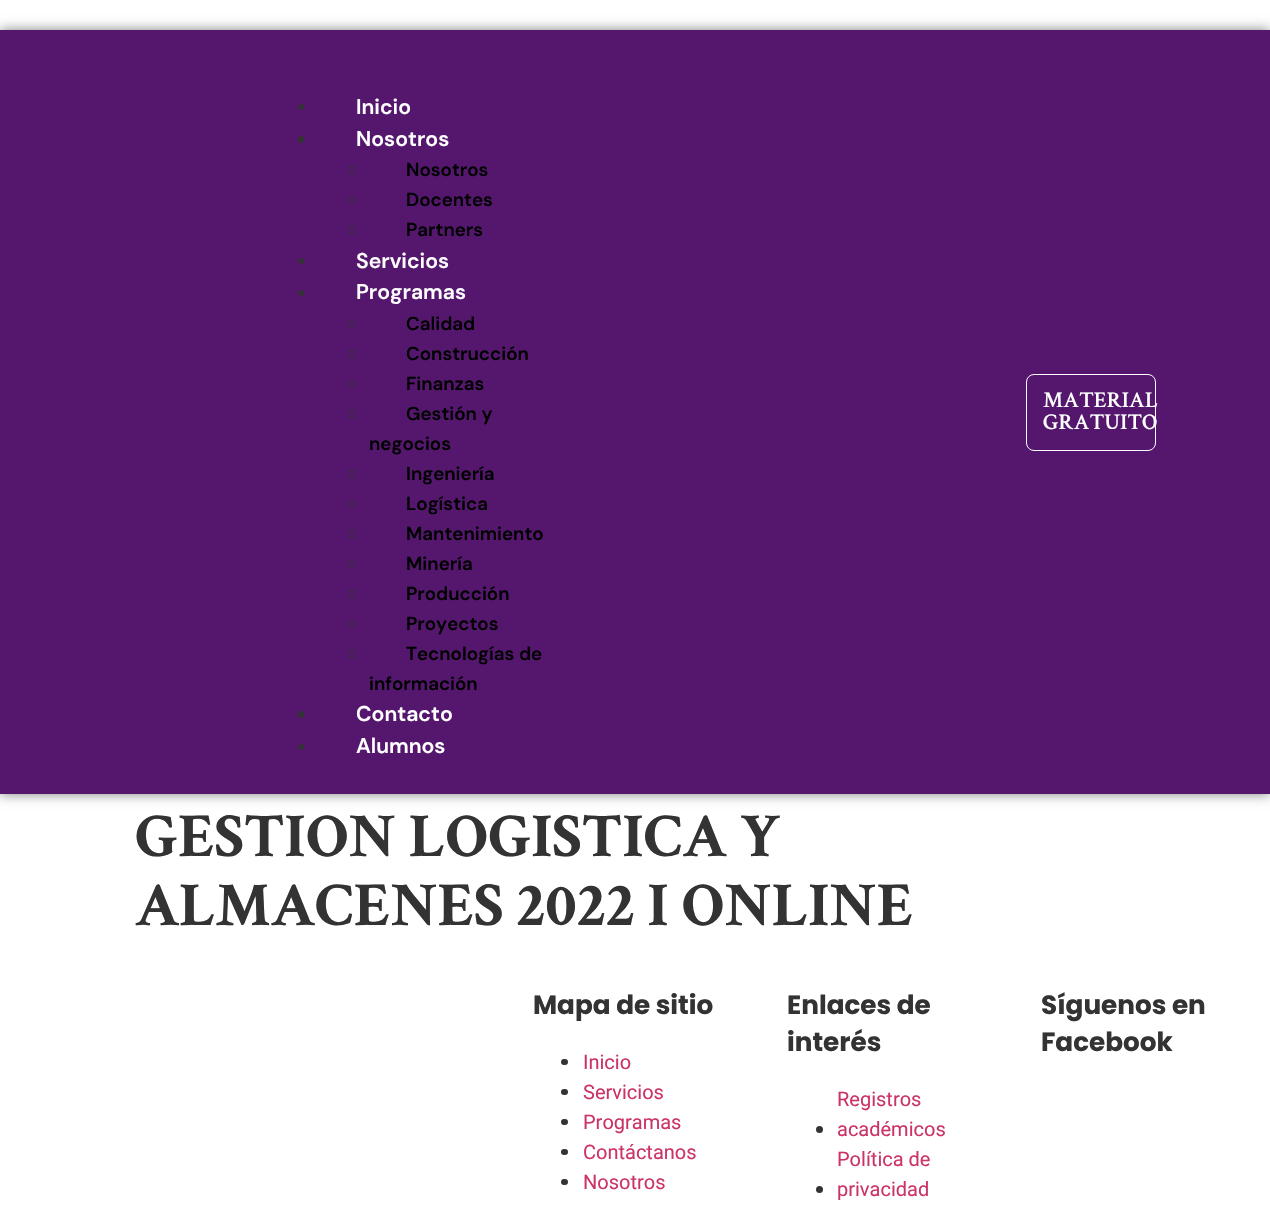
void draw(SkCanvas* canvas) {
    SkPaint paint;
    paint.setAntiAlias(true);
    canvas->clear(0xFFFFFFFF);
    paint.setColor(0x80000000);
    paint.setMaskFilter(SkMaskFilter::MakeBlur(kNormal_SkBlurStyle, 6));
    canvas->drawRect(SkRect::MakeXYWH(0, 30, 1270, 764), paint);
    paint.setMaskFilter(nullptr);
    paint.setColor(0xFF54176D);
    canvas->drawRect(SkRect::MakeXYWH(0, 30, 1270, 764), paint);
    paint.setColor(0xFF333333);
    canvas->drawCircle(301, 107, 3, paint);
    SkFont font1(fontMgr->matchFamilyStyle("DM Sans", SkFontStyle(600, SkFontStyle::kNormal_Width, SkFontStyle::kUpright_Slant)), 21.25f);
    font1.setSubpixel(true);
    paint.setColor(0xFFFFFFFF);
    canvas->drawString("Inicio", 356, 114, font1, paint);
    paint.setColor(0xFF333333);
    canvas->drawRoundRect(SkRect::MakeXYWH(298, 136, 6, 7), 3, 3, paint);
    paint.setColor(0xFFFFFFFF);
    canvas->drawString("Nosotros", 356, 146, font1, paint);
    paint.setStyle(SkPaint::kStroke_Style);
    paint.setStrokeWidth(1);
    paint.setColor(0xFF333333);
    canvas->drawRoundRect(SkRect::MakeXYWH(348.5f, 166.5f, 6, 7), 3, 3, paint);
    SkFont font2(fontMgr->matchFamilyStyle("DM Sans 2", SkFontStyle(600, SkFontStyle::kNormal_Width, SkFontStyle::kUpright_Slant)), 18.75f);
    font2.setSubpixel(true);
    paint.setStyle(SkPaint::kFill_Style);
    paint.setColor(0xFF000000);
    canvas->drawString("Nosotros", 406, 176, font2, paint);
    paint.setStyle(SkPaint::kStroke_Style);
    paint.setColor(0xFF333333);
    canvas->drawRoundRect(SkRect::MakeXYWH(348.5f, 196.5f, 6, 7), 3, 3, paint);
    paint.setStyle(SkPaint::kFill_Style);
    paint.setColor(0xFF000000);
    canvas->drawString("Docentes", 406, 206, font2, paint);
    paint.setStyle(SkPaint::kStroke_Style);
    paint.setColor(0xFF333333);
    canvas->drawRoundRect(SkRect::MakeXYWH(348.5f, 226.5f, 6, 7), 3, 3, paint);
    paint.setStyle(SkPaint::kFill_Style);
    paint.setColor(0xFF000000);
    canvas->drawString("Partners", 406, 236, font2, paint);
    paint.setColor(0xFF333333);
    canvas->drawCircle(301, 261, 3, paint);
    paint.setColor(0xFFFFFFFF);
    canvas->drawString("Servicios", 356, 268, font1, paint);
    paint.setColor(0xFF333333);
    canvas->drawCircle(301, 293, 3, paint);
    paint.setColor(0xFFFFFFFF);
    canvas->drawString("Programas", 356, 299, font1, paint);
    paint.setStyle(SkPaint::kStroke_Style);
    paint.setColor(0xFF333333);
    canvas->drawRoundRect(SkRect::MakeXYWH(348.5f, 320.5f, 6, 7), 3, 3, paint);
    paint.setStyle(SkPaint::kFill_Style);
    paint.setColor(0xFF000000);
    canvas->drawString("Calidad", 406, 330, font2, paint);
    paint.setStyle(SkPaint::kStroke_Style);
    paint.setColor(0xFF333333);
    canvas->drawRoundRect(SkRect::MakeXYWH(348.5f, 350.5f, 6, 7), 3, 3, paint);
    paint.setStyle(SkPaint::kFill_Style);
    paint.setColor(0xFF000000);
    canvas->drawString("Construcción", 406, 360, font2, paint);
    paint.setStyle(SkPaint::kStroke_Style);
    paint.setColor(0xFF333333);
    canvas->drawRoundRect(SkRect::MakeXYWH(348.5f, 380.5f, 6, 7), 3, 3, paint);
    paint.setStyle(SkPaint::kFill_Style);
    paint.setColor(0xFF000000);
    canvas->drawString("Finanzas", 406, 390, font2, paint);
    paint.setStyle(SkPaint::kStroke_Style);
    paint.setColor(0xFF333333);
    canvas->drawRoundRect(SkRect::MakeXYWH(348.5f, 410.5f, 6, 7), 3, 3, paint);
    paint.setStyle(SkPaint::kFill_Style);
    paint.setColor(0xFF000000);
    canvas->drawString("Gestión y", 406, 420, font2, paint);
    canvas->drawString("negocios", 369, 450, font2, paint);
    paint.setStyle(SkPaint::kStroke_Style);
    paint.setColor(0xFF333333);
    canvas->drawRoundRect(SkRect::MakeXYWH(348.5f, 470.5f, 6, 7), 3, 3, paint);
    paint.setStyle(SkPaint::kFill_Style);
    paint.setColor(0xFF000000);
    canvas->drawString("Ingeniería", 406, 480, font2, paint);
    paint.setStyle(SkPaint::kStroke_Style);
    paint.setColor(0xFF333333);
    canvas->drawRoundRect(SkRect::MakeXYWH(348.5f, 500.5f, 6, 7), 3, 3, paint);
    paint.setStyle(SkPaint::kFill_Style);
    paint.setColor(0xFF000000);
    canvas->drawString("Logística", 406, 510, font2, paint);
    paint.setStyle(SkPaint::kStroke_Style);
    paint.setColor(0xFF333333);
    canvas->drawRoundRect(SkRect::MakeXYWH(348.5f, 530.5f, 6, 7), 3, 3, paint);
    paint.setStyle(SkPaint::kFill_Style);
    paint.setColor(0xFF000000);
    canvas->drawString("Mantenimiento", 406, 540, font2, paint);
    paint.setStyle(SkPaint::kStroke_Style);
    paint.setColor(0xFF333333);
    canvas->drawRoundRect(SkRect::MakeXYWH(348.5f, 560.5f, 6, 7), 3, 3, paint);
    paint.setStyle(SkPaint::kFill_Style);
    paint.setColor(0xFF000000);
    canvas->drawString("Minería", 406, 570, font2, paint);
    paint.setStyle(SkPaint::kStroke_Style);
    paint.setColor(0xFF333333);
    canvas->drawRoundRect(SkRect::MakeXYWH(348.5f, 590.5f, 6, 7), 3, 3, paint);
    paint.setStyle(SkPaint::kFill_Style);
    paint.setColor(0xFF000000);
    canvas->drawString("Producción", 406, 600, font2, paint);
    paint.setStyle(SkPaint::kStroke_Style);
    paint.setColor(0xFF333333);
    canvas->drawRoundRect(SkRect::MakeXYWH(348.5f, 620.5f, 6, 7), 3, 3, paint);
    paint.setStyle(SkPaint::kFill_Style);
    paint.setColor(0xFF000000);
    canvas->drawString("Proyectos", 406, 630, font2, paint);
    paint.setStyle(SkPaint::kStroke_Style);
    paint.setColor(0xFF333333);
    canvas->drawRoundRect(SkRect::MakeXYWH(348.5f, 650.5f, 6, 7), 3, 3, paint);
    paint.setStyle(SkPaint::kFill_Style);
    paint.setColor(0xFF000000);
    canvas->drawString("Tecnologías de", 406, 660, font2, paint);
    canvas->drawString("información", 369, 690, font2, paint);
    paint.setColor(0xFF333333);
    canvas->drawRoundRect(SkRect::MakeXYWH(298, 711, 6, 7), 3, 3, paint);
    paint.setColor(0xFFFFFFFF);
    canvas->drawString("Contacto", 356, 721, font1, paint);
    paint.setColor(0xFF333333);
    canvas->drawCircle(301, 747, 3, paint);
    paint.setColor(0xFFFFFFFF);
    canvas->drawString("Alumnos", 356, 753, font1, paint);
    paint.setStyle(SkPaint::kStroke_Style);
    canvas->drawRoundRect(SkRect::MakeXYWH(1026.5f, 374.5f, 129, 76), 7.5f, 7.5f, paint);
    SkFont font3(fontMgr->matchFamilyStyle("Crimson Text", SkFontStyle(600, SkFontStyle::kNormal_Width, SkFontStyle::kUpright_Slant)), 22.5f);
    font3.setSubpixel(true);
    paint.setStyle(SkPaint::kFill_Style);
    canvas->drawString("MATERIAL", 1043, 407, font3, paint);
    canvas->drawString("GRATUITO", 1043, 429, font3, paint);
    SkFont font4(fontMgr->matchFamilyStyle("Crimson Text", SkFontStyle::Bold()), 62.5f);
    font4.setSubpixel(true);
    paint.setColor(0xFF333333);
    canvas->drawString("GESTION LOGISTICA Y", 135, 856, font4, paint);
    canvas->drawString("ALMACENES 2022 I ONLINE", 135, 925, font4, paint);
    SkFont font5(fontMgr->matchFamilyStyle("Poppins", SkFontStyle::Bold()), 26.25f);
    font5.setSubpixel(true);
    canvas->drawString("Mapa de sitio", 533, 1014, font5, paint);
    canvas->drawRoundRect(SkRect::MakeXYWH(561, 1059, 7, 6), 3, 3, paint);
    SkFont font6(fontMgr->matchFamilyStyle("Roboto", SkFontStyle::Normal()), 20);
    font6.setSubpixel(true);
    paint.setColor(0xFFCC3366);
    canvas->drawString("Inicio", 583, 1069, font6, paint);
    paint.setColor(0xFF333333);
    canvas->drawRoundRect(SkRect::MakeXYWH(561, 1089, 7, 6), 3, 3, paint);
    paint.setColor(0xFFCC3366);
    canvas->drawString("Servicios", 583, 1099, font6, paint);
    paint.setColor(0xFF333333);
    canvas->drawRoundRect(SkRect::MakeXYWH(561, 1119, 7, 6), 3, 3, paint);
    paint.setColor(0xFFCC3366);
    canvas->drawString("Programas", 583, 1129, font6, paint);
    paint.setColor(0xFF333333);
    canvas->drawRoundRect(SkRect::MakeXYWH(561, 1149, 7, 6), 3, 3, paint);
    paint.setColor(0xFFCC3366);
    canvas->drawString("Contáctanos", 583, 1159, font6, paint);
    paint.setColor(0xFF333333);
    canvas->drawRoundRect(SkRect::MakeXYWH(561, 1179, 7, 6), 3, 3, paint);
    paint.setColor(0xFFCC3366);
    canvas->drawString("Nosotros", 583, 1189, font6, paint);
    paint.setColor(0xFF333333);
    canvas->drawString("Enlaces de", 787, 1014, font5, paint);
    canvas->drawString("interés", 787, 1051, font5, paint);
    canvas->drawCircle(819.5f, 1129.5f, 3.5f, paint);
    paint.setColor(0xFFCC3366);
    canvas->drawString("Registros", 837, 1106, font6, paint);
    canvas->drawString("académicos", 837, 1136, font6, paint);
    paint.setColor(0xFF333333);
    canvas->drawCircle(819.5f, 1189.5f, 3.5f, paint);
    paint.setColor(0xFFCC3366);
    canvas->drawString("Política de", 837, 1166, font6, paint);
    canvas->drawString("privacidad", 837, 1196, font6, paint);
    paint.setColor(0xFF333333);
    canvas->drawString("Síguenos en", 1041, 1014, font5, paint);
    canvas->drawString("Facebook", 1041, 1051, font5, paint);
}
